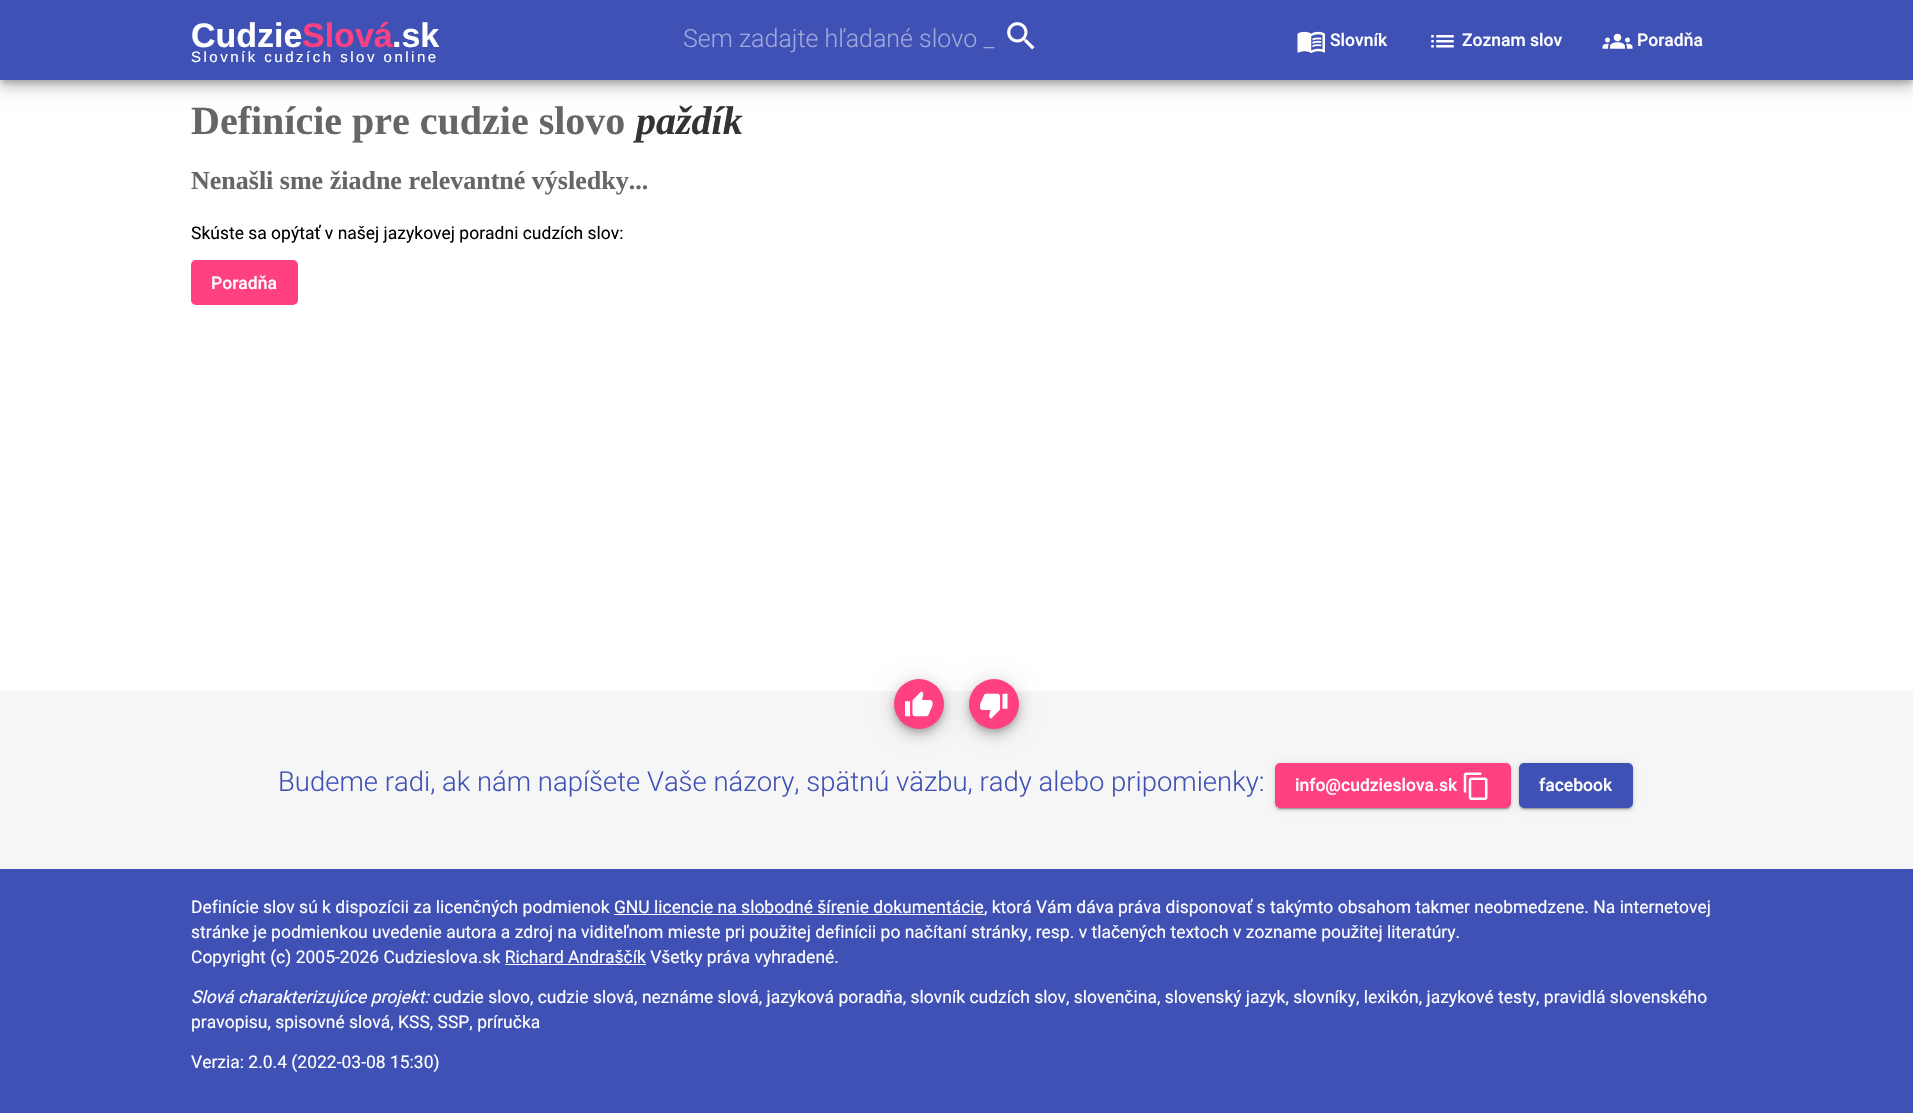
void draw(SkCanvas* canvas) {
    SkPaint paint;
    paint.setAntiAlias(true);
    auto spacedText = [&](const char* s, float x, float y, const SkFont& font, const SkPaint& ink, float letter, float word) {
        std::vector<SkGlyphID> glyphs(font.countText(s, strlen(s), SkTextEncoding::kUTF8));
        std::vector<float> xs(glyphs.size());
        font.textToGlyphs(s, strlen(s), SkTextEncoding::kUTF8, glyphs);
        font.getXPos(glyphs, xs, x);
        float extra = 0;
        for (size_t i = 0; i < glyphs.size(); i++) {
            xs[i] += extra;
            extra += letter + word * (glyphs[i] == font.unicharToGlyph(' '));
        }
        canvas->drawTextBlob(SkTextBlob::MakeFromPosHGlyphs(glyphs, xs, y, font), 0, 0, ink);
    };
    canvas->clear(0xFFFFFFFF);
    paint.setColor(0x1F000000);
    paint.setMaskFilter(SkMaskFilter::MakeBlur(kNormal_SkBlurStyle, 11));
    canvas->drawRect(SkRect::MakeXYWH(0, 1, 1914, 80), paint);
    paint.setMaskFilter(nullptr);
    paint.setColor(0x24000000);
    paint.setMaskFilter(SkMaskFilter::MakeBlur(kNormal_SkBlurStyle, 6));
    canvas->drawRect(SkRect::MakeXYWH(0, 8, 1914, 80), paint);
    paint.setMaskFilter(nullptr);
    paint.setColor(0x33000000);
    paint.setMaskFilter(SkMaskFilter::MakeBlur(kNormal_SkBlurStyle, 3));
    canvas->drawRect(SkRect::MakeXYWH(1, 5, 1912, 78), paint);
    paint.setMaskFilter(nullptr);
    paint.setColor(0xFF3F51B5);
    canvas->drawRect(SkRect::MakeXYWH(0, 0, 1913, 80), paint);
    SkFont font1(fontMgr->matchFamilyStyle("Liberation Sans", SkFontStyle::Bold()), 34);
    font1.setSubpixel(true);
    paint.setColor(0xFFFFFFFF);
    canvas->drawString("Cudzie", 191, 47, font1, paint);
    paint.setColor(0xFFFF4081);
    canvas->drawString("Slová", 302, 47, font1, paint);
    paint.setColor(0xFFFFFFFF);
    canvas->drawString(".sk", 392, 47, font1, paint);
    SkFont font2(fontMgr->matchFamilyStyle("Liberation Sans", SkFontStyle::Normal()), 15);
    font2.setSubpixel(true);
    spacedText("Slovník cudzích slov online", 191, 62, font2, paint, 2.5f, 0);
    SkFont font3(fontMgr->matchFamilyStyle("Roboto", SkFontStyle(300, SkFontStyle::kNormal_Width, SkFontStyle::kUpright_Slant)), 25);
    font3.setSubpixel(true);
    paint.setColor(0xFF9FA8DA);
    canvas->drawString("Sem zadajte hľadané slovo _", 683, 47, font3, paint);
    canvas->drawImageRect(SkImages::DeferredFromEncodedData(SkData::MakeFromFileName("img1.png")), SkRect::MakeXYWH(1007, 22, 28, 28), SkSamplingOptions());
    canvas->drawImageRect(SkImages::DeferredFromEncodedData(SkData::MakeFromFileName("img2.png")), SkRect::MakeXYWH(1297, 31, 28, 23), SkSamplingOptions());
    SkFont font4(fontMgr->matchFamilyStyle("Roboto", SkFontStyle(500, SkFontStyle::kNormal_Width, SkFontStyle::kUpright_Slant)), 17.5f);
    font4.setSubpixel(true);
    paint.setColor(0xFFFFFFFF);
    canvas->drawString("Slovník", 1330, 46, font4, paint);
    canvas->drawImageRect(SkImages::DeferredFromEncodedData(SkData::MakeFromFileName("img3.png")), SkRect::MakeXYWH(1431, 35, 23, 13), SkSamplingOptions());
    canvas->drawString("Zoznam slov", 1462, 46, font4, paint);
    canvas->drawImageRect(SkImages::DeferredFromEncodedData(SkData::MakeFromFileName("img4.png")), SkRect::MakeXYWH(1602, 33, 31, 16), SkSamplingOptions());
    canvas->drawString("Poradňa", 1637, 46, font4, paint);
    SkFont font5(fontMgr->matchFamilyStyle("Liberation Serif", SkFontStyle::Bold()), 40);
    font5.setSubpixel(true);
    paint.setColor(0xFF666666);
    canvas->drawString("Definície pre cudzie slovo", 191, 134, font5, paint);
    SkFont font6(fontMgr->matchFamilyStyle("Liberation Serif", SkFontStyle::BoldItalic()), 40);
    font6.setSubpixel(true);
    paint.setColor(0xFF333333);
    canvas->drawString("paždík", 636, 134, font6, paint);
    SkFont font7(fontMgr->matchFamilyStyle("Liberation Serif", SkFontStyle::Bold()), 26);
    font7.setSubpixel(true);
    paint.setColor(0xFF666666);
    canvas->drawString("Nenašli sme žiadne relevantné výsledky...", 191, 189, font7, paint);
    SkFont font8(fontMgr->matchFamilyStyle("Roboto", SkFontStyle::Normal()), 17.5f);
    font8.setSubpixel(true);
    paint.setColor(0xFF000000);
    canvas->drawString("Skúste sa opýtať v našej jazykovej poradni cudzích slov:", 191, 239, font8, paint);
    paint.setColor(0xFFFF4081);
    canvas->drawRoundRect(SkRect::MakeXYWH(191, 260, 107, 45), 5, 5, paint);
    paint.setColor(0xFFFFFFFF);
    canvas->drawString("Poradňa", 211, 289, font4, paint);
    paint.setColor(0xFFF6F6F6);
    canvas->drawRect(SkRect::MakeXYWH(0, 691, 1913, 178), paint);
    paint.setColor(0x1F000000);
    paint.setMaskFilter(SkMaskFilter::MakeBlur(kNormal_SkBlurStyle, 11));
    canvas->drawRoundRect(SkRect::MakeXYWH(894, 680, 50, 50), 25, 25, paint);
    paint.setMaskFilter(nullptr);
    paint.setColor(0x24000000);
    paint.setMaskFilter(SkMaskFilter::MakeBlur(kNormal_SkBlurStyle, 6));
    canvas->drawRoundRect(SkRect::MakeXYWH(894, 686, 50, 50), 25, 25, paint);
    paint.setMaskFilter(nullptr);
    paint.setColor(0x33000000);
    paint.setMaskFilter(SkMaskFilter::MakeBlur(kNormal_SkBlurStyle, 3));
    canvas->drawRoundRect(SkRect::MakeXYWH(895, 684, 48, 47), 23.5f, 23.5f, paint);
    paint.setMaskFilter(nullptr);
    paint.setColor(0xFFFF4081);
    canvas->drawCircle(919, 704, 25, paint);
    canvas->drawImageRect(SkImages::DeferredFromEncodedData(SkData::MakeFromFileName("img5.png")), SkRect::MakeXYWH(905, 691, 28, 26), SkSamplingOptions());
    paint.setColor(0x1F000000);
    paint.setMaskFilter(SkMaskFilter::MakeBlur(kNormal_SkBlurStyle, 11));
    canvas->drawRoundRect(SkRect::MakeXYWH(969, 680, 50, 50), 25, 25, paint);
    paint.setMaskFilter(nullptr);
    paint.setColor(0x24000000);
    paint.setMaskFilter(SkMaskFilter::MakeBlur(kNormal_SkBlurStyle, 6));
    canvas->drawRoundRect(SkRect::MakeXYWH(969, 686, 50, 50), 25, 25, paint);
    paint.setMaskFilter(nullptr);
    paint.setColor(0x33000000);
    paint.setMaskFilter(SkMaskFilter::MakeBlur(kNormal_SkBlurStyle, 3));
    canvas->drawRoundRect(SkRect::MakeXYWH(970, 684, 48, 47), 23.5f, 23.5f, paint);
    paint.setMaskFilter(nullptr);
    paint.setColor(0xFFFF4081);
    canvas->drawCircle(994, 704, 25, paint);
    canvas->drawImageRect(SkImages::DeferredFromEncodedData(SkData::MakeFromFileName("img6.png")), SkRect::MakeXYWH(980, 693, 28, 26), SkSamplingOptions());
    SkFont font9(fontMgr->matchFamilyStyle("Roboto", SkFontStyle(300, SkFontStyle::kNormal_Width, SkFontStyle::kUpright_Slant)), 27.5f);
    font9.setSubpixel(true);
    paint.setColor(0xFF3F51B5);
    canvas->drawString("Budeme radi, ak nám napíšete Vaše názory, spätnú väzbu, rady alebo pripomienky:", 278, 791, font9, paint);
    paint.setColor(0x1F000000);
    paint.setMaskFilter(SkMaskFilter::MakeBlur(kNormal_SkBlurStyle, 3));
    canvas->drawRoundRect(SkRect::MakeXYWH(1275, 764, 236, 45), 5, 5, paint);
    paint.setMaskFilter(nullptr);
    paint.setColor(0x24000000);
    paint.setMaskFilter(SkMaskFilter::MakeBlur(kNormal_SkBlurStyle, 1));
    canvas->drawRoundRect(SkRect::MakeXYWH(1275, 765, 236, 45), 5, 5, paint);
    paint.setMaskFilter(nullptr);
    paint.setColor(0x33000000);
    paint.setMaskFilter(SkMaskFilter::MakeBlur(kNormal_SkBlurStyle, 0.5f));
    canvas->drawRoundRect(SkRect::MakeXYWH(1278, 769, 231, 40), 2.5f, 2.5f, paint);
    paint.setMaskFilter(nullptr);
    paint.setColor(0xFFFF4081);
    canvas->drawRoundRect(SkRect::MakeXYWH(1275, 763, 236, 45), 5, 5, paint);
    paint.setColor(0xFFFFFFFF);
    canvas->drawString("info@cudzieslova.sk", 1295, 791, font4, paint);
    canvas->drawImageRect(SkImages::DeferredFromEncodedData(SkData::MakeFromFileName("img7.png")), SkRect::MakeXYWH(1463, 772, 25, 28), SkSamplingOptions());
    paint.setColor(0x1F000000);
    paint.setMaskFilter(SkMaskFilter::MakeBlur(kNormal_SkBlurStyle, 3));
    canvas->drawRoundRect(SkRect::MakeXYWH(1519, 764, 114, 45), 5, 5, paint);
    paint.setMaskFilter(nullptr);
    paint.setColor(0x24000000);
    paint.setMaskFilter(SkMaskFilter::MakeBlur(kNormal_SkBlurStyle, 1));
    canvas->drawRoundRect(SkRect::MakeXYWH(1519, 765, 114, 45), 5, 5, paint);
    paint.setMaskFilter(nullptr);
    paint.setColor(0x33000000);
    paint.setMaskFilter(SkMaskFilter::MakeBlur(kNormal_SkBlurStyle, 0.5f));
    canvas->drawRoundRect(SkRect::MakeXYWH(1521, 769, 109, 40), 2.5f, 2.5f, paint);
    paint.setMaskFilter(nullptr);
    paint.setColor(0xFF3F51B5);
    canvas->drawRoundRect(SkRect::MakeXYWH(1519, 763, 114, 45), 5, 5, paint);
    paint.setColor(0xFFFFFFFF);
    canvas->drawString("facebook", 1539, 791, font4, paint);
    paint.setColor(0xFF3F51B5);
    canvas->drawRect(SkRect::MakeXYWH(0, 869, 1913, 244), paint);
    paint.setColor(0xFFFFFFFF);
    canvas->drawString("Definície slov sú k dispozícii za licenčných podmienok GNU licencie na slobodné šírenie dokumentácie, ktorá Vám dáva práva disponovať s takýmto obsahom takmer neobmedzene. Na internetovej", 191, 913, font8, paint);
    canvas->drawRect(SkRect::MakeXYWH(614, 914, 370, 1), paint);
    canvas->drawString("stránke je podmienkou uvedenie autora a zdroj na viditeľnom mieste pri použitej definícii po načítaní stránky, resp. v tlačených textoch v zozname použitej literatúry.", 191, 938, font8, paint);
    canvas->drawString("Copyright (c) 2005-2026 Cudzieslova.sk Richard Andraščík Všetky práva vyhradené.", 191, 963, font8, paint);
    canvas->drawRect(SkRect::MakeXYWH(505, 964, 141, 1), paint);
    SkFont font10(fontMgr->matchFamilyStyle("Roboto", SkFontStyle::Italic()), 17.5f);
    font10.setSubpixel(true);
    canvas->drawString("Slová charakterizujúce projekt:", 191, 1003, font10, paint);
    canvas->drawString("cudzie slovo, cudzie slová, neznáme slová, jazyková poradňa, slovník cudzích slov, slovenčina, slovenský jazyk, slovníky, lexikón, jazykové testy, pravidlá slovenského", 433, 1003, font8, paint);
    canvas->drawString("pravopisu, spisovné slová, KSS, SSP, príručka", 191, 1028, font8, paint);
    canvas->drawString("Verzia: 2.0.4 (2022-03-08 15:30)", 191, 1068, font8, paint);
}
